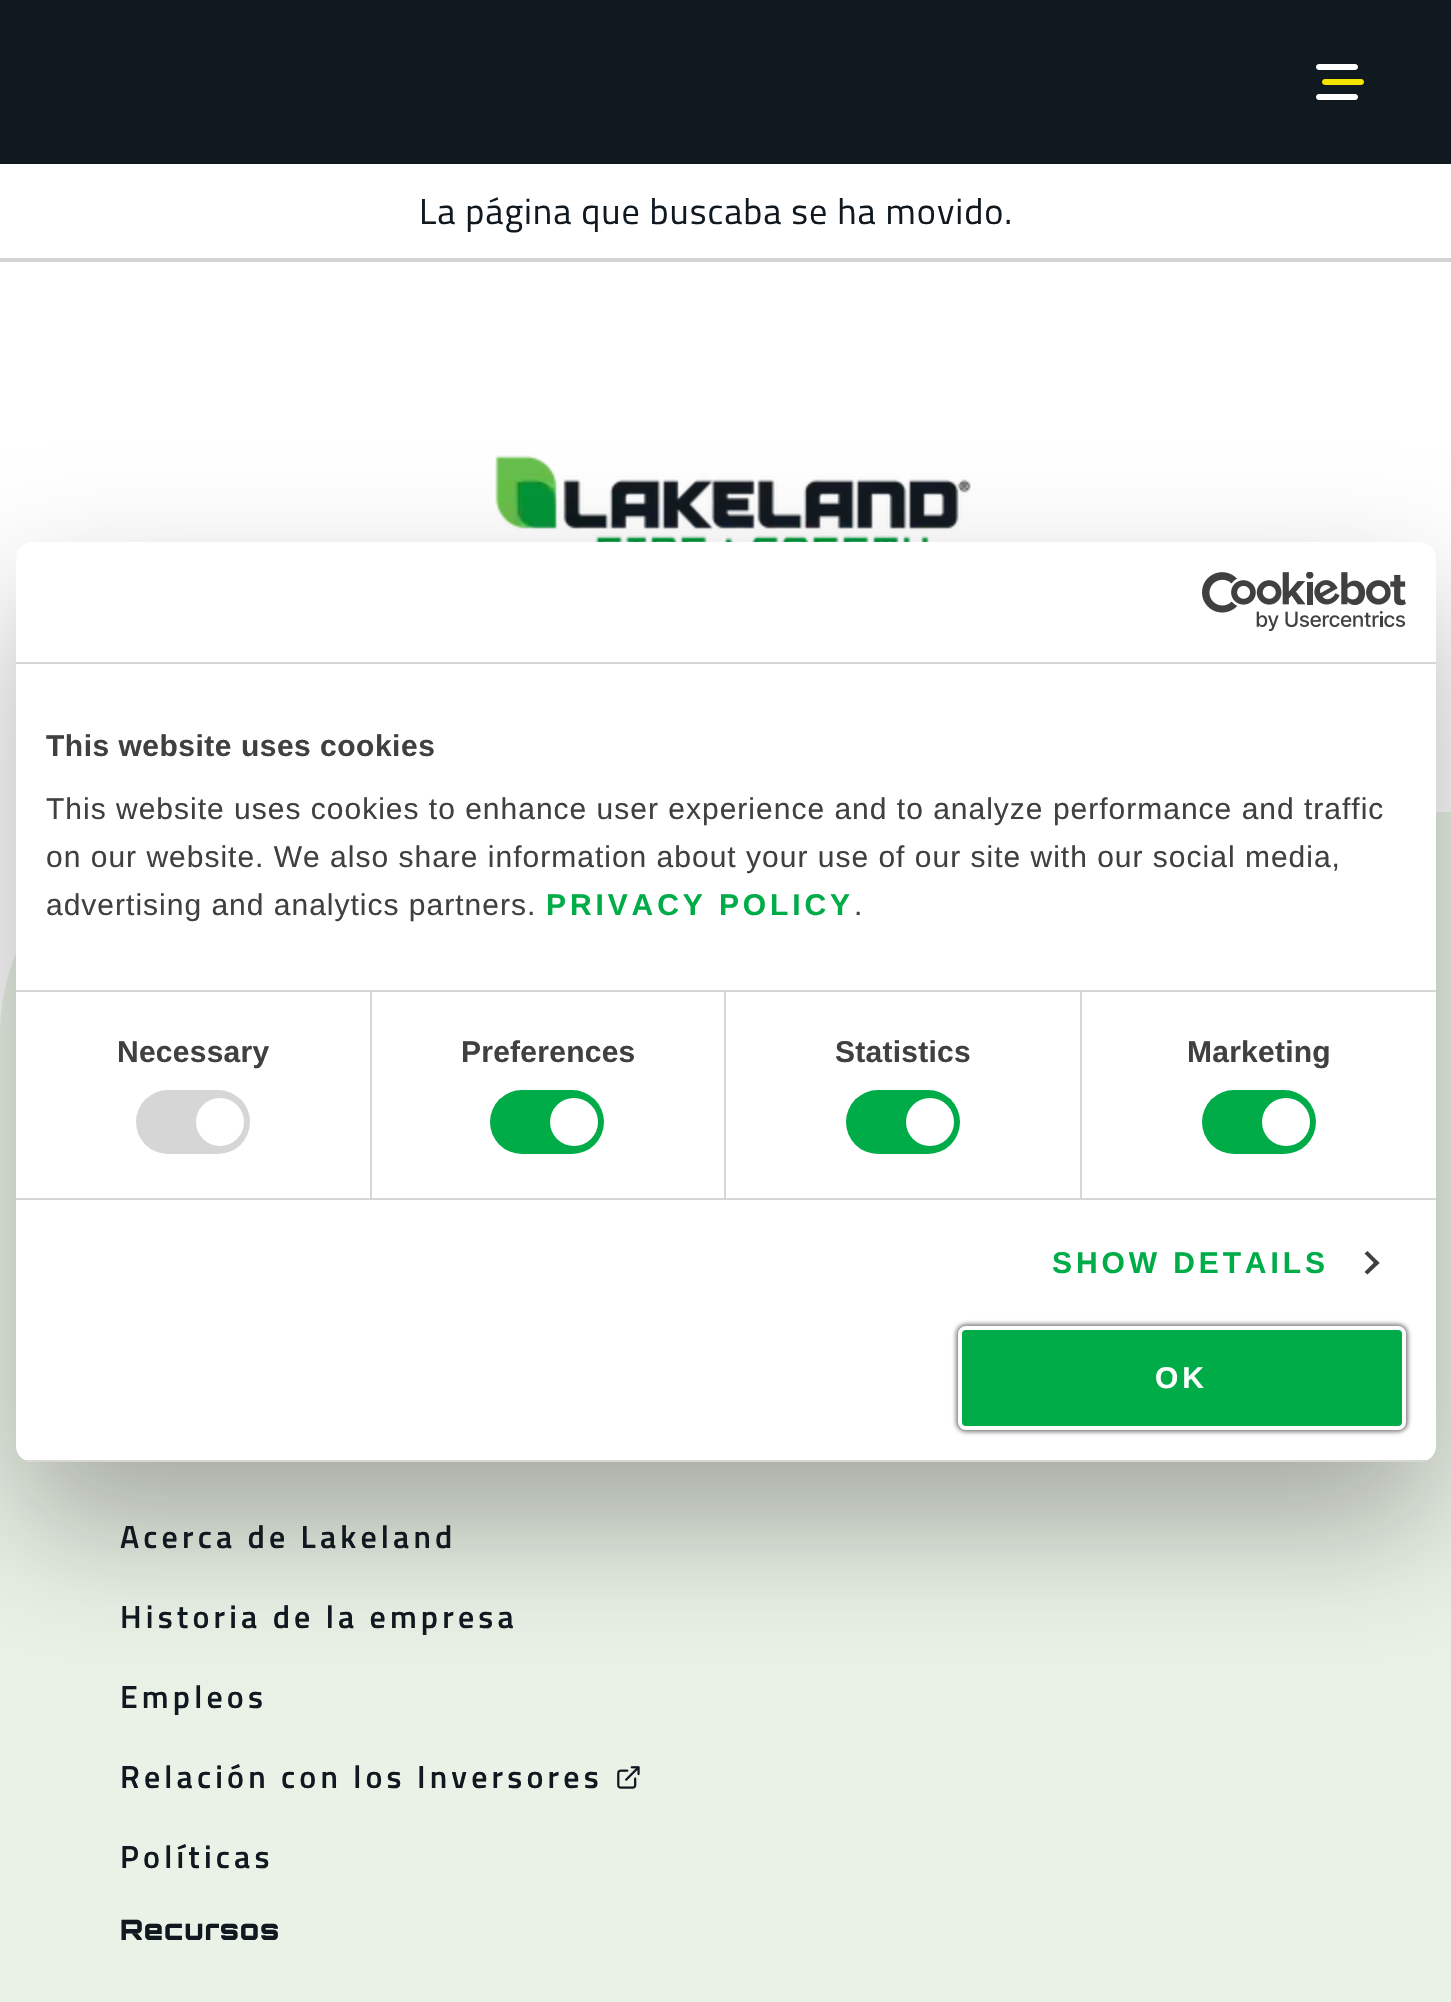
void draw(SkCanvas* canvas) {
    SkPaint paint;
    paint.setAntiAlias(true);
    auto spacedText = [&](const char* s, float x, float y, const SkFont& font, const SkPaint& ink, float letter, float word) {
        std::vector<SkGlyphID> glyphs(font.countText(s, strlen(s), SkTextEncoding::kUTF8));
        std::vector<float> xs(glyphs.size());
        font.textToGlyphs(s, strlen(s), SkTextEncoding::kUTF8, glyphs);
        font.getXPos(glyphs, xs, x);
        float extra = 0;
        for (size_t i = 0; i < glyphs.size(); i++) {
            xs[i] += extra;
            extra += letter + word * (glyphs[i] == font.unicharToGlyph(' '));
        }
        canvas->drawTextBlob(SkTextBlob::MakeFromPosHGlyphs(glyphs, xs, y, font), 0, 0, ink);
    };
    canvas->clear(0xFFFFFFFF);
    paint.setColor(0xFF101820);
    canvas->drawRect(SkRect::MakeXYWH(0, 0, 1451, 164), paint);
    canvas->drawImageRect(SkImages::DeferredFromEncodedData(SkData::MakeFromFileName("img1.png")), SkRect::MakeXYWH(1316, 64, 48, 36), SkSamplingOptions());
    SkFont font1(fontMgr->matchFamilyStyle("Titillium Web", SkFontStyle::Normal()), 36.2f);
    font1.setSubpixel(true);
    spacedText("La página que buscaba se ha movido.", 419, 224, font1, paint, 0.95f, 0);
    canvas->drawImageRect(SkImages::DeferredFromEncodedData(SkData::MakeFromFileName("img3.png")), SkRect::MakeXYWH(495, 455, 476, 87), SkSamplingOptions());
    paint.setColor(0xFFEAF2E7);
    canvas->drawPath(SkPathBuilder().moveTo(224, 812).lineTo(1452, 812).lineTo(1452, 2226).lineTo(0, 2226).lineTo(0, 1036).cubicTo(0, 912.5f, 100.5f, 812, 224, 812).close().detach(), paint);
    paint.setColor(0x4D000000);
    paint.setMaskFilter(SkMaskFilter::MakeBlur(kNormal_SkBlurStyle, 68));
    canvas->drawRoundRect(SkRect::MakeXYWH(16, 606, 1420, 920), 16, 16, paint);
    paint.setMaskFilter(nullptr);
    paint.setColor(0xFFFFFFFF);
    canvas->drawRoundRect(SkRect::MakeXYWH(16, 542, 1420, 920), 16, 16, paint);
    paint.setColor(0xFFD6D6D6);
    canvas->drawRect(SkRect::MakeXYWH(16, 662, 1420, 2), paint);
    canvas->drawImageRect(SkImages::DeferredFromEncodedData(SkData::MakeFromFileName("img2.png")), SkRect::MakeXYWH(1202, 572, 204, 60), SkSamplingOptions());
    canvas->drawRect(SkRect::MakeXYWH(16, 990, 1420, 2), paint);
    SkFont font2(fontMgr->matchFamilyStyle("Liberation Sans", SkFontStyle::Bold()), 30);
    font2.setSubpixel(true);
    paint.setColor(0xFF404040);
    spacedText("This website uses cookies", 46, 756, font2, paint, 0.5f, 0);
    SkFont font3(fontMgr->matchFamilyStyle("Liberation Sans", SkFontStyle::Normal()), 30);
    font3.setSubpixel(true);
    spacedText("This website uses cookies to enhance user experience and to analyze performance and traffic", 46, 819, font3, paint, 1, 0);
    spacedText("on our website. We also share information about your use of our site with our social media,", 46, 867, font3, paint, 1, 0);
    spacedText("advertising and analytics partners.", 46, 915, font3, paint, 1, 0);
    paint.setColor(0xFF00AC48);
    spacedText("PRIVACY POLICY", 546, 915, font2, paint, 3.9f, 0);
    paint.setColor(0xFF404040);
    spacedText(".", 854, 915, font3, paint, 1, 0);
    paint.setColor(0xFFD6D6D6);
    canvas->drawRect(SkRect::MakeXYWH(16, 1198, 1420, 2), paint);
    canvas->drawRect(SkRect::MakeXYWH(370, 992, 2, 206), paint);
    paint.setColor(0xFF404040);
    spacedText("Necessary", 117, 1062, font2, paint, 0.25f, 0);
    paint.setColor(0xFFD6D6D6);
    canvas->drawRoundRect(SkRect::MakeXYWH(136, 1090, 114, 64), 32, 32, paint);
    paint.setColor(0xFFFFFFFF);
    canvas->drawCircle(220, 1122, 24, paint);
    paint.setColor(0xFFD6D6D6);
    canvas->drawRect(SkRect::MakeXYWH(724, 992, 2, 206), paint);
    paint.setColor(0xFF404040);
    spacedText("Preferences", 461, 1062, font2, paint, 0.25f, 0);
    paint.setColor(0xFF00AC48);
    canvas->drawRoundRect(SkRect::MakeXYWH(490, 1090, 114, 64), 32, 32, paint);
    paint.setColor(0xFFFFFFFF);
    canvas->drawCircle(574, 1122, 24, paint);
    paint.setColor(0xFFD6D6D6);
    canvas->drawRect(SkRect::MakeXYWH(1080, 992, 2, 206), paint);
    paint.setColor(0xFF404040);
    spacedText("Statistics", 835, 1062, font2, paint, 0.25f, 0);
    paint.setColor(0xFF00AC48);
    canvas->drawRoundRect(SkRect::MakeXYWH(846, 1090, 114, 64), 32, 32, paint);
    paint.setColor(0xFFFFFFFF);
    canvas->drawCircle(930, 1122, 24, paint);
    paint.setColor(0xFF404040);
    spacedText("Marketing", 1187, 1062, font2, paint, 0.25f, 0);
    paint.setColor(0xFF00AC48);
    canvas->drawRoundRect(SkRect::MakeXYWH(1202, 1090, 114, 64), 32, 32, paint);
    paint.setColor(0xFFFFFFFF);
    canvas->drawCircle(1286, 1122, 24, paint);
    paint.setColor(0xFF00AC48);
    spacedText("SHOW DETAILS", 1052, 1273, font2, paint, 3.9f, 0);
    paint.setColor(0xFF404040);
    canvas->drawPath(SkPathBuilder().moveTo(1367.5f, 1251).lineTo(1379.5f, 1263).lineTo(1376.5f, 1265.5f).lineTo(1364.5f, 1253.5f).close().detach(), paint);
    canvas->drawPath(SkPathBuilder().moveTo(1376.5f, 1260).lineTo(1379.5f, 1263).lineTo(1367.5f, 1274.5f).lineTo(1364.5f, 1272).close().detach(), paint);
    canvas->save();
    canvas->clipPath(SkPathBuilder().moveTo(32, 542).lineTo(1420, 542).cubicTo(1429, 542, 1436, 549, 1436, 558).lineTo(1436, 1446).cubicTo(1436, 1455, 1429, 1462, 1420, 1462).lineTo(32, 1462).cubicTo(23, 1462, 16, 1455, 16, 1446).lineTo(16, 558).cubicTo(16, 549, 23, 542, 32, 542).close().detach(), true);
    paint.setColor(0xFFD6D6D6);
    canvas->drawRect(SkRect::MakeXYWH(16, 1460, 1420, 2), paint);
    canvas->restore();
    paint.setColor(0x80000000);
    paint.setMaskFilter(SkMaskFilter::MakeBlur(kNormal_SkBlurStyle, 2));
    canvas->drawRoundRect(SkRect::MakeXYWH(956, 1324, 452, 108), 10, 10, paint);
    paint.setMaskFilter(nullptr);
    paint.setColor(0xFF00AC48);
    canvas->drawRoundRect(SkRect::MakeXYWH(960, 1328, 444, 100), 6, 6, paint);
    paint.setStyle(SkPaint::kStroke_Style);
    paint.setStrokeWidth(4);
    paint.setColor(0xFFFFFFFF);
    canvas->drawRoundRect(SkRect::MakeXYWH(960, 1328, 444, 100), 6, 6, paint);
    paint.setStyle(SkPaint::kFill_Style);
    spacedText("OK", 1155, 1388, font2, paint, 3.9f, 0);
    paint.setColor(0xFFD3D3D4);
    canvas->drawRect(SkRect::MakeXYWH(0, 258, 1451, 4), paint);
    SkFont font4(fontMgr->matchFamilyStyle("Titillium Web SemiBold", SkFontStyle(600, SkFontStyle::kNormal_Width, SkFontStyle::kUpright_Slant)), 32);
    font4.setSubpixel(true);
    paint.setColor(0xFF101820);
    spacedText("Acerca de Lakeland", 120, 1548, font4, paint, 4.15f, 0);
    spacedText("Historia de la empresa", 120, 1628, font4, paint, 4.15f, 0);
    spacedText("Empleos", 120, 1708, font4, paint, 4.15f, 0);
    spacedText("Relación con los Inversores", 120, 1788, font4, paint, 4.15f, 0);
    canvas->drawImageRect(SkImages::DeferredFromEncodedData(SkData::MakeFromFileName("img4.png")), SkRect::MakeXYWH(617, 1766, 23, 23), SkSamplingOptions());
    spacedText("Políticas", 120, 1868, font4, paint, 4.15f, 0);
    SkFont font5(fontMgr->matchFamilyStyle("Orbitron", SkFontStyle(900, SkFontStyle::kNormal_Width, SkFontStyle::kUpright_Slant)), 28);
    font5.setSubpixel(true);
    spacedText("Recursos", 120, 1940, font5, paint, 0.75f, 0);
}
